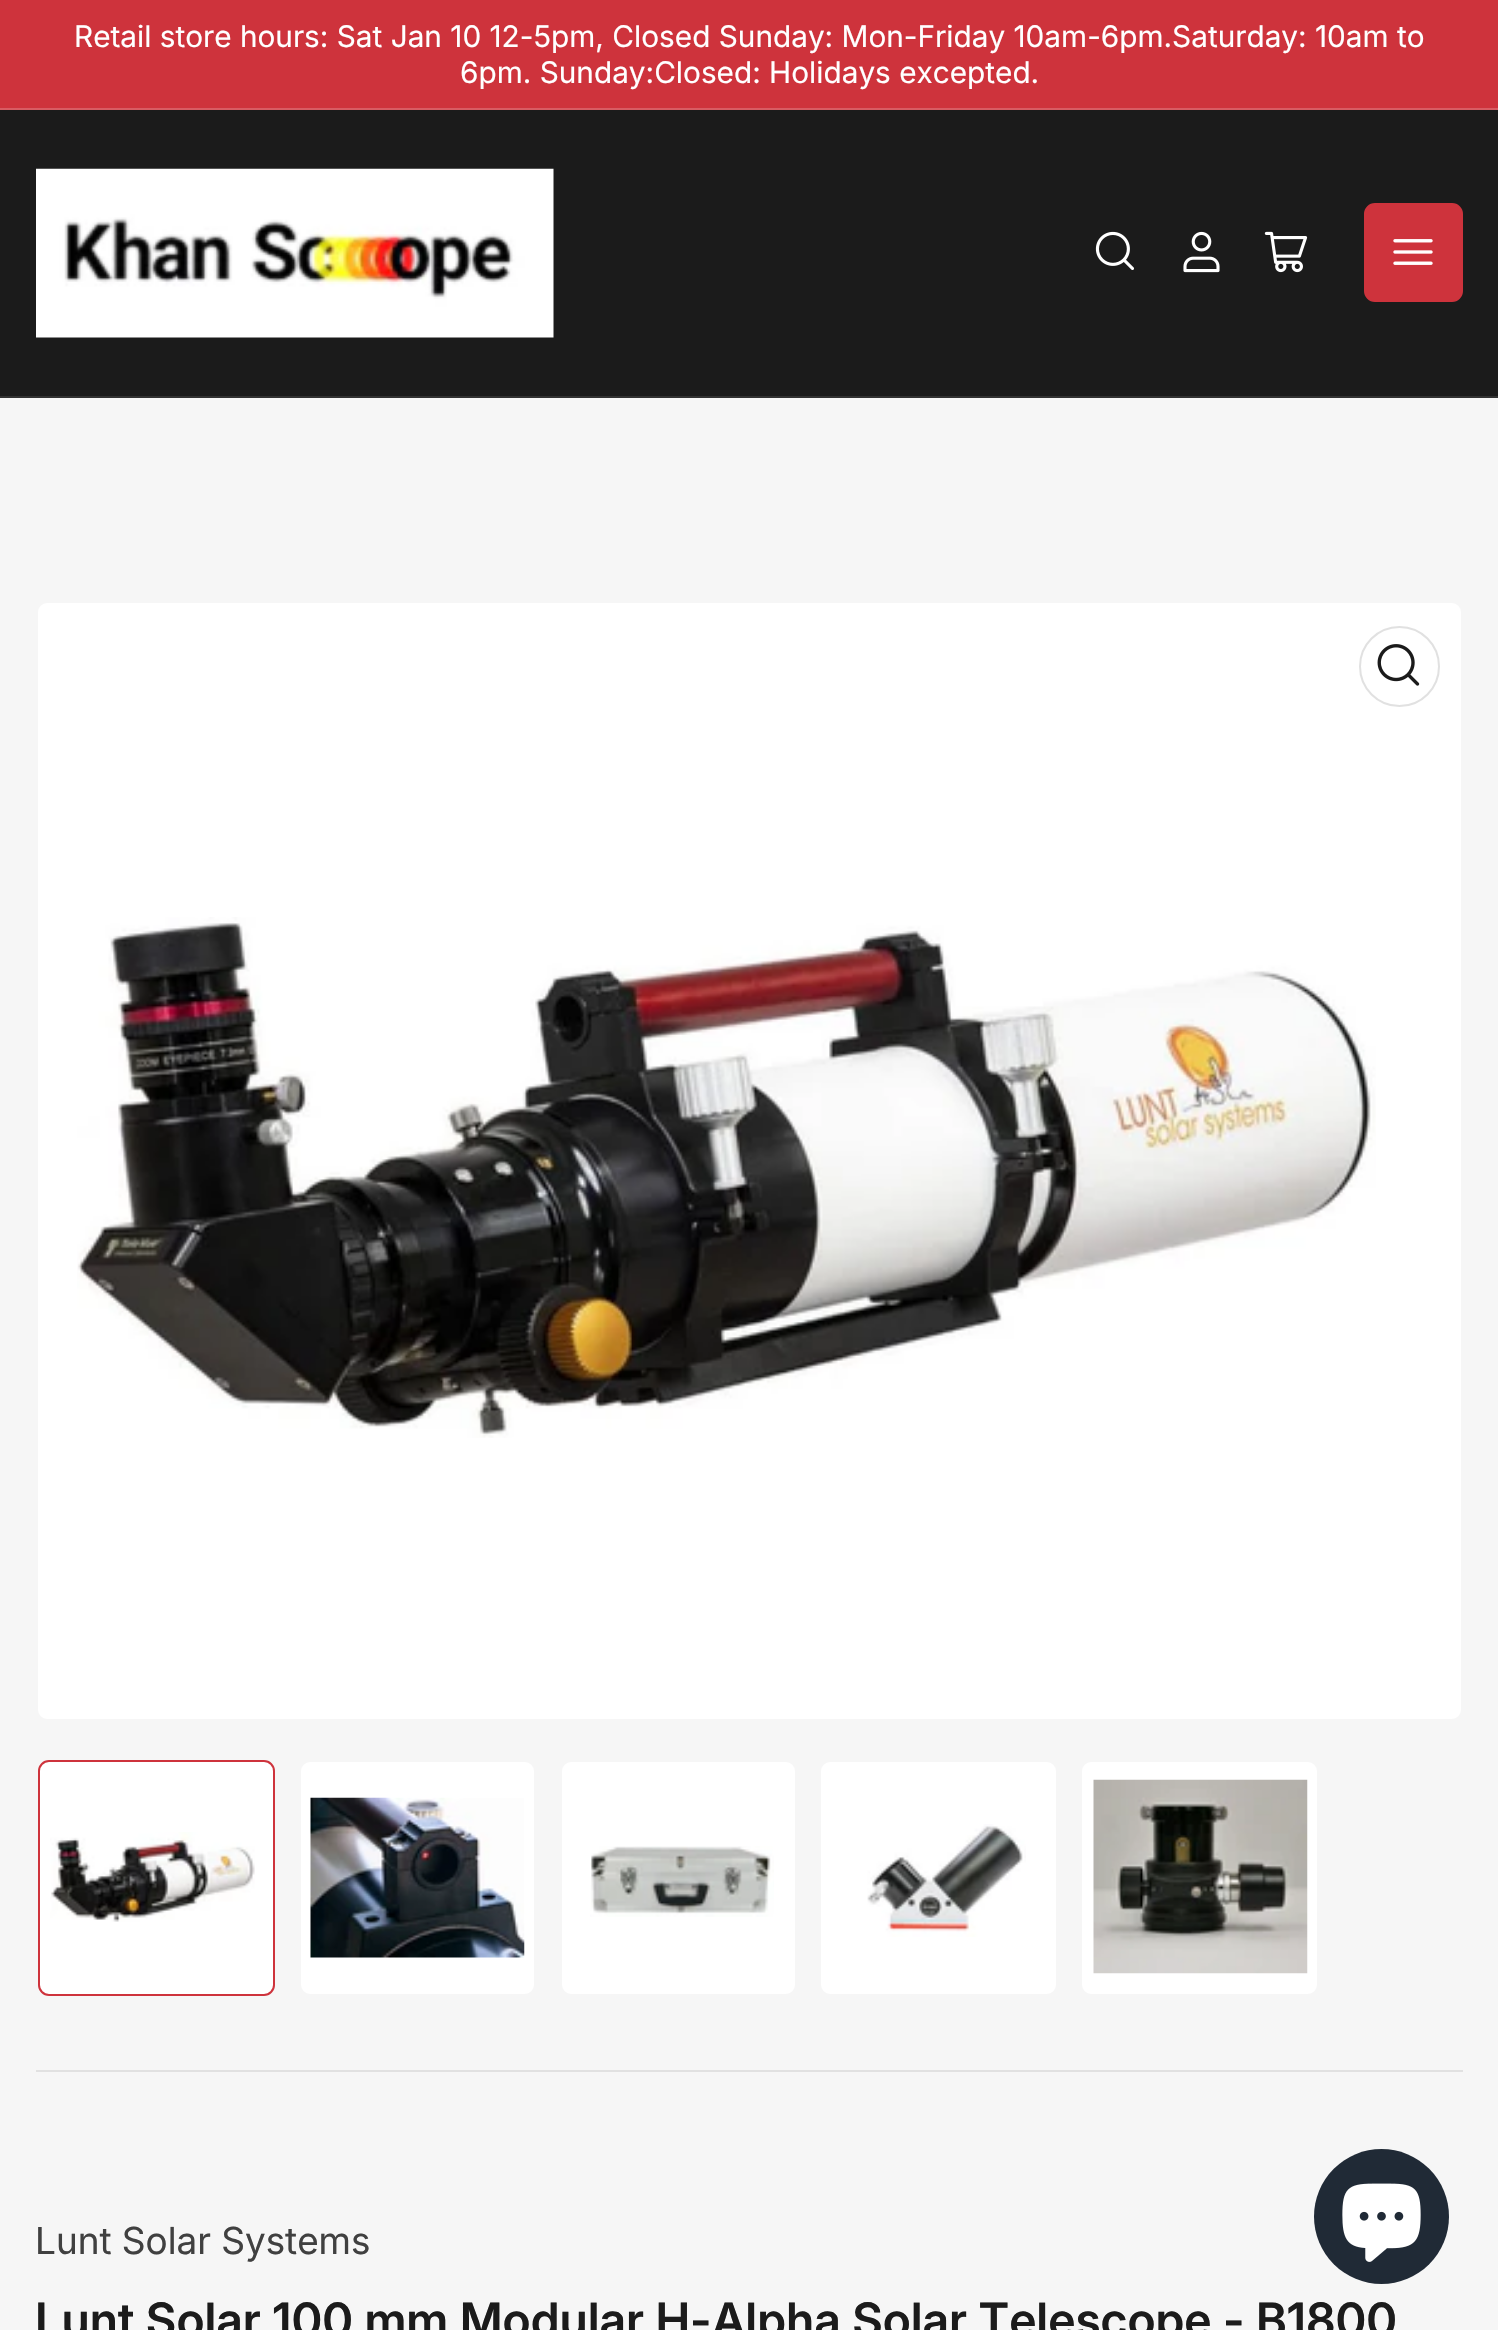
void draw(SkCanvas* canvas) {
    SkPaint paint;
    paint.setAntiAlias(true);
    canvas->clear(0xFFF6F6F6);
    paint.setColor(0xFFCE333C);
    canvas->drawRect(SkRect::MakeXYWH(0, 0, 1498, 108), paint);
    paint.setColor(0xFFD85C63);
    canvas->drawRect(SkRect::MakeXYWH(0, 108, 1498, 2), paint);
    SkFont font1(fontMgr->matchFamilyStyle("Inter", SkFontStyle::Normal()), 29.75f);
    font1.setSubpixel(true);
    paint.setColor(0xFFFFFFFF);
    canvas->drawString("Retail store hours: Sat Jan 10 12-5pm, Closed Sunday: Mon-Friday 10am-6pm.Saturday: 10am to", 74, 47, font1, paint);
    canvas->drawString("6pm. Sunday:Closed: Holidays excepted.", 460, 83, font1, paint);
    paint.setColor(0xFF1B1B1B);
    canvas->drawRect(SkRect::MakeXYWH(0, 110, 1498, 286), paint);
    paint.setColor(0xFF323232);
    canvas->drawRect(SkRect::MakeXYWH(0, 396, 1498, 2), paint);
    canvas->drawImageRect(SkImages::DeferredFromEncodedData(SkData::MakeFromFileName("img1.png")), SkRect::MakeXYWH(36, 168, 518, 170), SkSamplingOptions());
    canvas->drawImageRect(SkImages::DeferredFromEncodedData(SkData::MakeFromFileName("img2.png")), SkRect::MakeXYWH(1095, 231, 39, 39), SkSamplingOptions());
    canvas->drawImageRect(SkImages::DeferredFromEncodedData(SkData::MakeFromFileName("img3.png")), SkRect::MakeXYWH(1183, 231, 37, 42), SkSamplingOptions());
    canvas->drawImageRect(SkImages::DeferredFromEncodedData(SkData::MakeFromFileName("img4.png")), SkRect::MakeXYWH(1264, 231, 44, 42), SkSamplingOptions());
    paint.setColor(0xFFCE333C);
    canvas->drawRoundRect(SkRect::MakeXYWH(1365, 204, 97, 97), 10, 10, paint);
    paint.setStyle(SkPaint::kStroke_Style);
    paint.setStrokeWidth(2);
    canvas->drawRoundRect(SkRect::MakeXYWH(1365, 204, 97, 97), 10, 10, paint);
    canvas->drawImageRect(SkImages::DeferredFromEncodedData(SkData::MakeFromFileName("img5.png")), SkRect::MakeXYWH(1393, 239, 40, 26), SkSamplingOptions());
    paint.setStyle(SkPaint::kFill_Style);
    paint.setColor(0xFF202A36);
    canvas->drawCircle(1381.5f, 2216.5f, 67.5f, paint);
    canvas->drawImageRect(SkImages::DeferredFromEncodedData(SkData::MakeFromFileName("img6.png")), SkRect::MakeXYWH(1342, 2183, 79, 79), SkSamplingOptions());
    paint.setColor(0xFFFFFFFF);
    canvas->drawRoundRect(SkRect::MakeXYWH(37, 602, 1425, 1118), 10, 10, paint);
    paint.setStyle(SkPaint::kStroke_Style);
    paint.setColor(0xFFF6F6F6);
    canvas->drawRoundRect(SkRect::MakeXYWH(37, 602, 1425, 1118), 10, 10, paint);
    paint.setColor(0xFFE1E1E1);
    canvas->drawCircle(1399.5f, 666.5f, 39.5f, paint);
    canvas->drawImageRect(SkImages::DeferredFromEncodedData(SkData::MakeFromFileName("img7.png")), SkRect::MakeXYWH(1377, 644, 43, 42), SkSamplingOptions());
    canvas->drawImageRect(SkImages::DeferredFromEncodedData(SkData::MakeFromFileName("img8.png")), SkRect::MakeXYWH(77, 917, 1299, 521), SkSamplingOptions());
    paint.setStyle(SkPaint::kFill_Style);
    paint.setColor(0xFFFFFFFF);
    canvas->drawRoundRect(SkRect::MakeXYWH(39, 1761, 235, 234), 10, 10, paint);
    paint.setStyle(SkPaint::kStroke_Style);
    paint.setColor(0xFFCE333C);
    canvas->drawRoundRect(SkRect::MakeXYWH(39, 1761, 235, 234), 10, 10, paint);
    canvas->drawImageRect(SkImages::DeferredFromEncodedData(SkData::MakeFromFileName("img9.png")), SkRect::MakeXYWH(50, 1832, 205, 90), SkSamplingOptions());
    paint.setStyle(SkPaint::kFill_Style);
    paint.setColor(0xFFFFFFFF);
    canvas->drawRoundRect(SkRect::MakeXYWH(300, 1761, 235, 234), 10, 10, paint);
    paint.setStyle(SkPaint::kStroke_Style);
    paint.setColor(0xFFF6F6F6);
    canvas->drawRoundRect(SkRect::MakeXYWH(300, 1761, 235, 234), 10, 10, paint);
    canvas->drawImageRect(SkImages::DeferredFromEncodedData(SkData::MakeFromFileName("img10.png")), SkRect::MakeXYWH(310, 1797, 215, 161), SkSamplingOptions());
    paint.setStyle(SkPaint::kFill_Style);
    paint.setColor(0xFFFFFFFF);
    canvas->drawRoundRect(SkRect::MakeXYWH(561, 1761, 235, 234), 10, 10, paint);
    paint.setStyle(SkPaint::kStroke_Style);
    paint.setColor(0xFFF6F6F6);
    canvas->drawRoundRect(SkRect::MakeXYWH(561, 1761, 235, 234), 10, 10, paint);
    canvas->drawImageRect(SkImages::DeferredFromEncodedData(SkData::MakeFromFileName("img11.png")), SkRect::MakeXYWH(590, 1846, 184, 71), SkSamplingOptions());
    paint.setStyle(SkPaint::kFill_Style);
    paint.setColor(0xFFFFFFFF);
    canvas->drawRoundRect(SkRect::MakeXYWH(820, 1761, 237, 234), 10, 10, paint);
    paint.setStyle(SkPaint::kStroke_Style);
    paint.setColor(0xFFF6F6F6);
    canvas->drawRoundRect(SkRect::MakeXYWH(820, 1761, 237, 234), 10, 10, paint);
    canvas->drawImageRect(SkImages::DeferredFromEncodedData(SkData::MakeFromFileName("img12.png")), SkRect::MakeXYWH(867, 1824, 159, 113), SkSamplingOptions());
    paint.setStyle(SkPaint::kFill_Style);
    paint.setColor(0xFFFFFFFF);
    canvas->drawRoundRect(SkRect::MakeXYWH(1081, 1761, 237, 234), 10, 10, paint);
    paint.setStyle(SkPaint::kStroke_Style);
    paint.setColor(0xFFF6F6F6);
    canvas->drawRoundRect(SkRect::MakeXYWH(1081, 1761, 237, 234), 10, 10, paint);
    canvas->drawImageRect(SkImages::DeferredFromEncodedData(SkData::MakeFromFileName("img13.png")), SkRect::MakeXYWH(1093, 1779, 215, 195), SkSamplingOptions());
    paint.setStyle(SkPaint::kFill_Style);
    paint.setColor(0xFFE1E1E1);
    canvas->drawRect(SkRect::MakeXYWH(36, 2070, 1427, 2), paint);
    SkFont font2(fontMgr->matchFamilyStyle("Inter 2", SkFontStyle::Normal()), 37.25f);
    font2.setSubpixel(true);
    paint.setColor(0xFF404040);
    canvas->drawString("Lunt Solar Systems", 35, 2254, font2, paint);
    SkFont font3(fontMgr->matchFamilyStyle("Inter", SkFontStyle(600, SkFontStyle::kNormal_Width, SkFontStyle::kUpright_Slant)), 47.25f);
    font3.setSubpixel(true);
    paint.setColor(0xFF1B1B1B);
    canvas->drawString("Lunt Solar 100 mm Modular H-Alpha Solar Telescope - B1800", 35, 2337, font3, paint);
}
